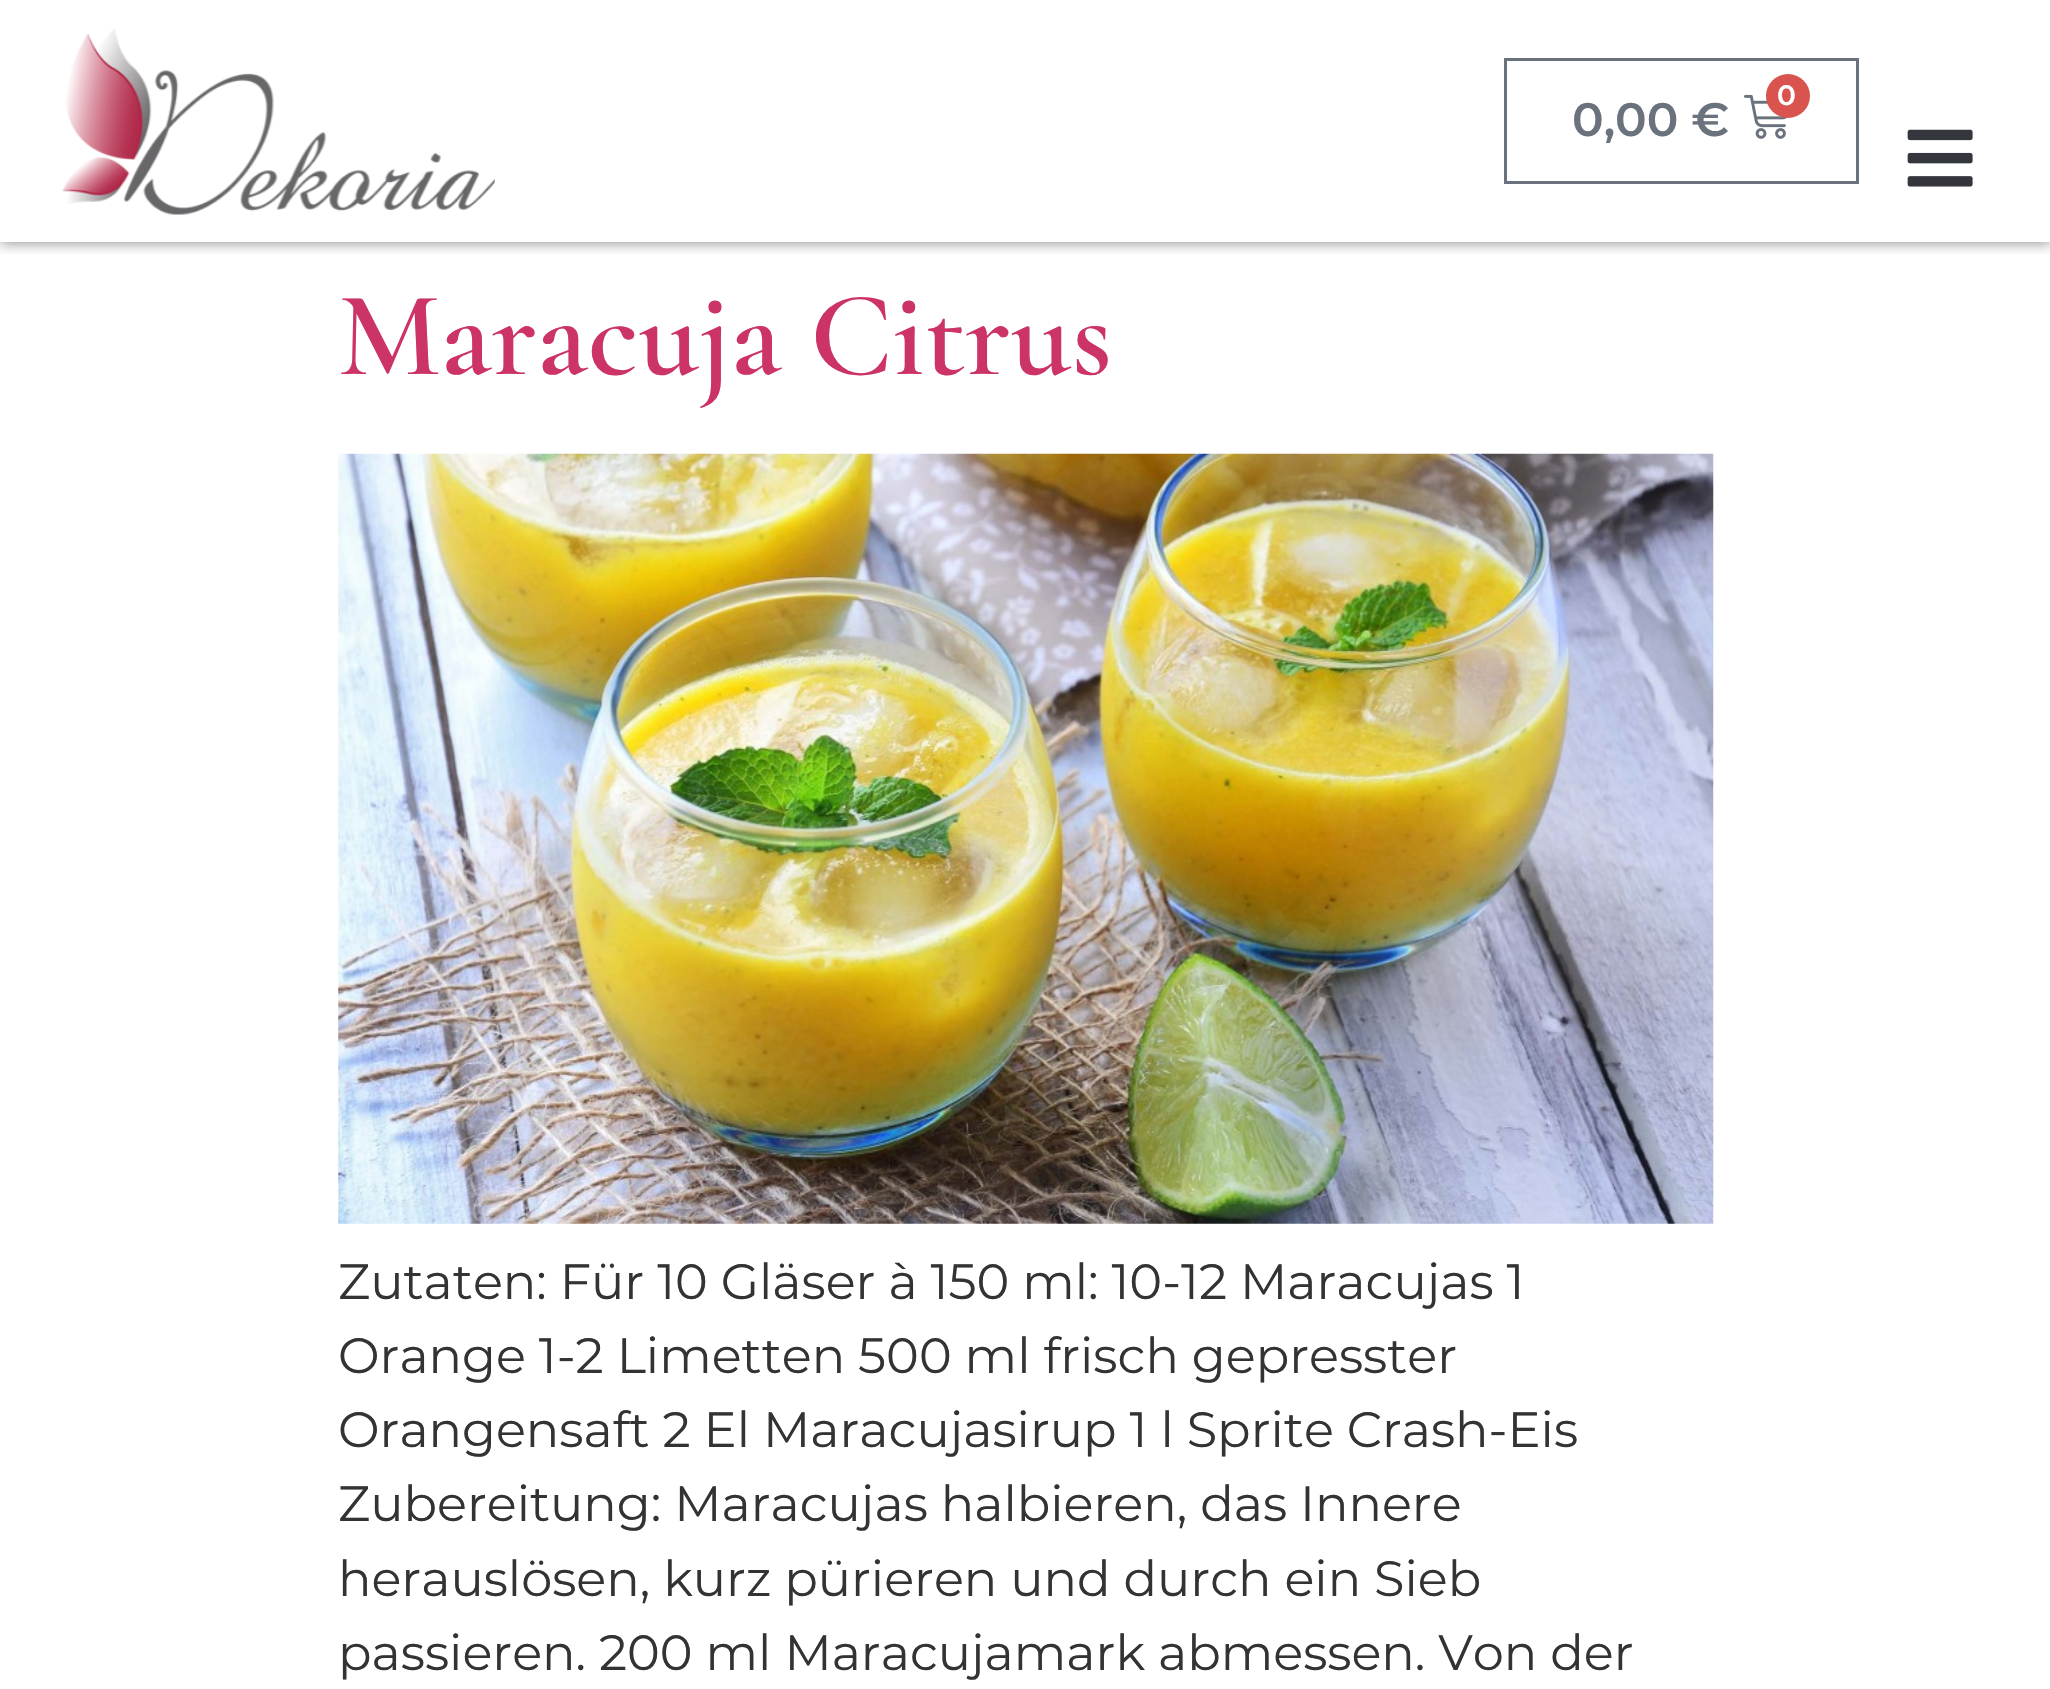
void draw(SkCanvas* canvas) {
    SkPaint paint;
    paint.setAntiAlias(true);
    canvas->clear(0xFFFFFFFF);
    canvas->save();
    canvas->clipRect(SkRect::MakeXYWH(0, 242, 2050, 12));
    paint.setColor(0x80000000);
    paint.setMaskFilter(SkMaskFilter::MakeBlur(kNormal_SkBlurStyle, 7));
    canvas->drawRect(SkRect::MakeXYWH(0, 0, 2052, 242), paint);
    paint.setMaskFilter(nullptr);
    canvas->restore();
    canvas->drawImageRect(SkImages::DeferredFromEncodedData(SkData::MakeFromFileName("img1.png")), SkRect::MakeXYWH(62, 28, 433, 187), SkSamplingOptions());
    paint.setStyle(SkPaint::kStroke_Style);
    paint.setStrokeWidth(3);
    paint.setColor(0xFF69727D);
    canvas->drawRect(SkRect::MakeXYWH(1505.5f, 59.5f, 352, 123), paint);
    canvas->drawImageRect(SkImages::DeferredFromEncodedData(SkData::MakeFromFileName("img2.png")), SkRect::MakeXYWH(1744, 94, 44, 45), SkSamplingOptions());
    paint.setStyle(SkPaint::kFill_Style);
    paint.setColor(0xFFD9534F);
    canvas->drawCircle(1788, 96, 22, paint);
    SkFont font1(fontMgr->matchFamilyStyle("Montserrat", SkFontStyle(600, SkFontStyle::kNormal_Width, SkFontStyle::kUpright_Slant)), 28);
    font1.setSubpixel(true);
    paint.setColor(0xFFFFFFFF);
    canvas->drawString("0", 1777, 105, font1, paint);
    SkFont font2(fontMgr->matchFamilyStyle("Montserrat", SkFontStyle(600, SkFontStyle::kNormal_Width, SkFontStyle::kUpright_Slant)), 47);
    font2.setSubpixel(true);
    paint.setColor(0xFF69727D);
    canvas->drawString("0,00 €", 1572, 136, font2, paint);
    canvas->drawImageRect(SkImages::DeferredFromEncodedData(SkData::MakeFromFileName("img3.png")), SkRect::MakeXYWH(1907, 129, 66, 58), SkSamplingOptions());
    SkFont font3(fontMgr->matchFamilyStyle("Cormorant Garamond", SkFontStyle(600, SkFontStyle::kNormal_Width, SkFontStyle::kUpright_Slant)), 121);
    font3.setSubpixel(true);
    paint.setColor(0xFFCC3366);
    canvas->drawString("Maracuja Citrus", 338, 374, font3, paint);
    canvas->drawImageRect(SkImages::DeferredFromEncodedData(SkData::MakeFromFileName("img4.png")), SkRect::MakeXYWH(338, 453, 1376, 771), SkSamplingOptions());
    SkFont font4(fontMgr->matchFamilyStyle("Montserrat", SkFontStyle::Normal()), 49.5f);
    font4.setSubpixel(true);
    paint.setColor(0xFF333333);
    canvas->drawString("Zutaten: Für 10 Gläser à 150 ml: 10-12 Maracujas 1", 338, 1299, font4, paint);
    canvas->drawString("Orange 1-2 Limetten 500 ml frisch gepresster", 338, 1373, font4, paint);
    canvas->drawString("Orangensaft 2 El Maracujasirup 1 l Sprite Crash-Eis", 338, 1447, font4, paint);
    canvas->drawString("Zubereitung: Maracujas halbieren, das Innere", 338, 1521, font4, paint);
    canvas->drawString("herauslösen, kurz pürieren und durch ein Sieb", 338, 1596, font4, paint);
    canvas->drawString("passieren. 200 ml Maracujamark abmessen. Von der", 338, 1670, font4, paint);
}
